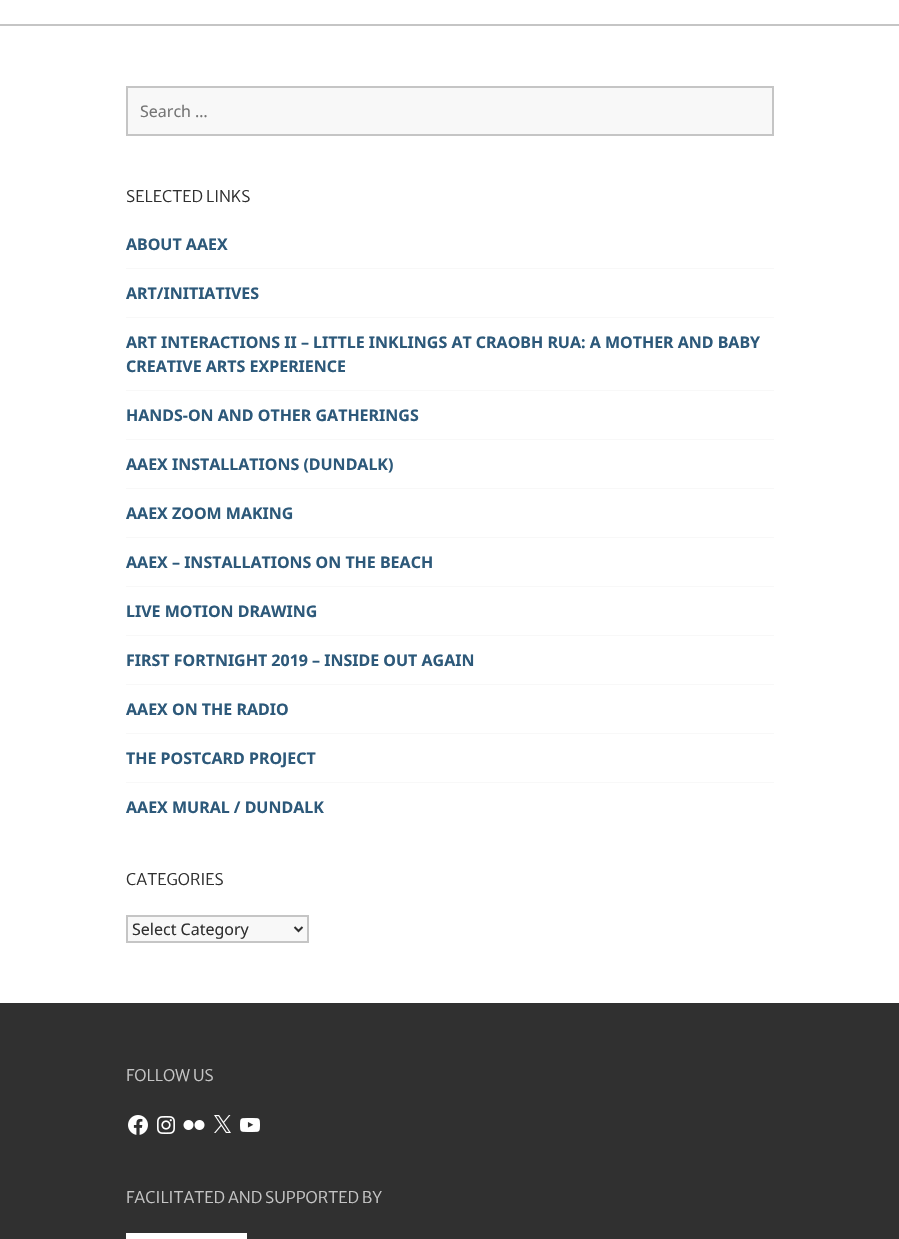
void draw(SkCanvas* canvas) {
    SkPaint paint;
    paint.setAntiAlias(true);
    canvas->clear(0xFFFFFFFF);
    paint.setColor(0xFFC5C5C5);
    canvas->drawRect(SkRect::MakeXYWH(0, 24, 899, 2), paint);
    paint.setColor(0xFFF8F8F8);
    canvas->drawRect(SkRect::MakeXYWH(127, 87, 646, 48), paint);
    paint.setStyle(SkPaint::kStroke_Style);
    paint.setStrokeWidth(2);
    paint.setColor(0xFFC5C5C5);
    canvas->drawRect(SkRect::MakeXYWH(127, 87, 646, 48), paint);
    SkFont font1(fontMgr->matchFamilyStyle("Noto Sans", SkFontStyle::Normal()), 16);
    font1.setSubpixel(true);
    paint.setStyle(SkPaint::kFill_Style);
    paint.setColor(0xFF757575);
    canvas->drawString("Search …", 140, 117, font1, paint);
    SkFont font2(fontMgr->matchFamilyStyle("Merriweather Sans", SkFontStyle(300, SkFontStyle::kNormal_Width, SkFontStyle::kUpright_Slant)), 16);
    font2.setSubpixel(true);
    paint.setColor(0xFF303030);
    canvas->drawString("SELECTED LINKS", 126, 202, font2, paint);
    SkFont font3(fontMgr->matchFamilyStyle("Noto Sans", SkFontStyle::Bold()), 16);
    font3.setSubpixel(true);
    paint.setColor(0xFF2D597A);
    canvas->drawString("ABOUT AAEX", 126, 250, font3, paint);
    paint.setColor(0xFFF8F8F8);
    canvas->drawRect(SkRect::MakeXYWH(126, 268, 648, 1), paint);
    paint.setColor(0xFF2D597A);
    canvas->drawString("ART/INITIATIVES", 126, 299, font3, paint);
    paint.setColor(0xFFF8F8F8);
    canvas->drawRect(SkRect::MakeXYWH(126, 317, 648, 1), paint);
    paint.setColor(0xFF2D597A);
    canvas->drawString("ART INTERACTIONS II – LITTLE INKLINGS AT CRAOBH RUA: A MOTHER AND BABY", 126, 348, font3, paint);
    canvas->drawString("CREATIVE ARTS EXPERIENCE", 126, 372, font3, paint);
    paint.setColor(0xFFF8F8F8);
    canvas->drawRect(SkRect::MakeXYWH(126, 390, 648, 1), paint);
    paint.setColor(0xFF2D597A);
    canvas->drawString("HANDS-ON AND OTHER GATHERINGS", 126, 421, font3, paint);
    paint.setColor(0xFFF8F8F8);
    canvas->drawRect(SkRect::MakeXYWH(126, 439, 648, 1), paint);
    paint.setColor(0xFF2D597A);
    canvas->drawString("AAEX INSTALLATIONS (DUNDALK)", 126, 470, font3, paint);
    paint.setColor(0xFFF8F8F8);
    canvas->drawRect(SkRect::MakeXYWH(126, 488, 648, 1), paint);
    paint.setColor(0xFF2D597A);
    canvas->drawString("AAEX ZOOM MAKING", 126, 519, font3, paint);
    paint.setColor(0xFFF8F8F8);
    canvas->drawRect(SkRect::MakeXYWH(126, 537, 648, 1), paint);
    paint.setColor(0xFF2D597A);
    canvas->drawString("AAEX – INSTALLATIONS ON THE BEACH", 126, 568, font3, paint);
    paint.setColor(0xFFF8F8F8);
    canvas->drawRect(SkRect::MakeXYWH(126, 586, 648, 1), paint);
    paint.setColor(0xFF2D597A);
    canvas->drawString("LIVE MOTION DRAWING", 126, 617, font3, paint);
    paint.setColor(0xFFF8F8F8);
    canvas->drawRect(SkRect::MakeXYWH(126, 635, 648, 1), paint);
    paint.setColor(0xFF2D597A);
    canvas->drawString("FIRST FORTNIGHT 2019 – INSIDE OUT AGAIN", 126, 666, font3, paint);
    paint.setColor(0xFFF8F8F8);
    canvas->drawRect(SkRect::MakeXYWH(126, 684, 648, 1), paint);
    paint.setColor(0xFF2D597A);
    canvas->drawString("AAEX ON THE RADIO", 126, 715, font3, paint);
    paint.setColor(0xFFF8F8F8);
    canvas->drawRect(SkRect::MakeXYWH(126, 733, 648, 1), paint);
    paint.setColor(0xFF2D597A);
    canvas->drawString("THE POSTCARD PROJECT", 126, 764, font3, paint);
    paint.setColor(0xFFF8F8F8);
    canvas->drawRect(SkRect::MakeXYWH(126, 782, 648, 1), paint);
    paint.setColor(0xFF2D597A);
    canvas->drawString("AAEX MURAL / DUNDALK", 126, 813, font3, paint);
    paint.setColor(0xFF303030);
    canvas->drawString("CATEGORIES", 126, 885, font2, paint);
    paint.setColor(0xFFF8F8F8);
    canvas->drawRect(SkRect::MakeXYWH(127, 916, 181, 26), paint);
    paint.setStyle(SkPaint::kStroke_Style);
    paint.setColor(0xFFC5C5C5);
    canvas->drawRect(SkRect::MakeXYWH(127, 916, 181, 26), paint);
    paint.setColor(0xFF303030);
    canvas->drawPath(SkPathBuilder().moveTo(294.5f, 927).lineTo(298.5f, 931).lineTo(302.5f, 927).detach(), paint);
    paint.setStyle(SkPaint::kFill_Style);
    canvas->drawString("Select Category", 132, 935, font1, paint);
    canvas->drawRect(SkRect::MakeXYWH(0, 1003, 899, 236), paint);
    paint.setColor(0xFFC5C5C5);
    canvas->drawString("FOLLOW US", 126, 1081, font2, paint);
    canvas->drawImageRect(SkImages::DeferredFromEncodedData(SkData::MakeFromFileName("img1.png")), SkRect::MakeXYWH(128, 1115, 20, 20), SkSamplingOptions());
    canvas->drawImageRect(SkImages::DeferredFromEncodedData(SkData::MakeFromFileName("img2.png")), SkRect::MakeXYWH(157, 1116, 18, 18), SkSamplingOptions());
    canvas->drawImageRect(SkImages::DeferredFromEncodedData(SkData::MakeFromFileName("img3.png")), SkRect::MakeXYWH(183, 1120, 22, 10), SkSamplingOptions());
    canvas->drawImageRect(SkImages::DeferredFromEncodedData(SkData::MakeFromFileName("img4.png")), SkRect::MakeXYWH(214, 1115, 17, 18), SkSamplingOptions());
    canvas->drawImageRect(SkImages::DeferredFromEncodedData(SkData::MakeFromFileName("img5.png")), SkRect::MakeXYWH(240, 1118, 20, 14), SkSamplingOptions());
    canvas->drawString("FACILITATED AND SUPPORTED BY", 126, 1203, font2, paint);
    paint.setColor(0xFFFFFFFF);
    canvas->drawRect(SkRect::MakeXYWH(126, 1233, 121, 6), paint);
}
